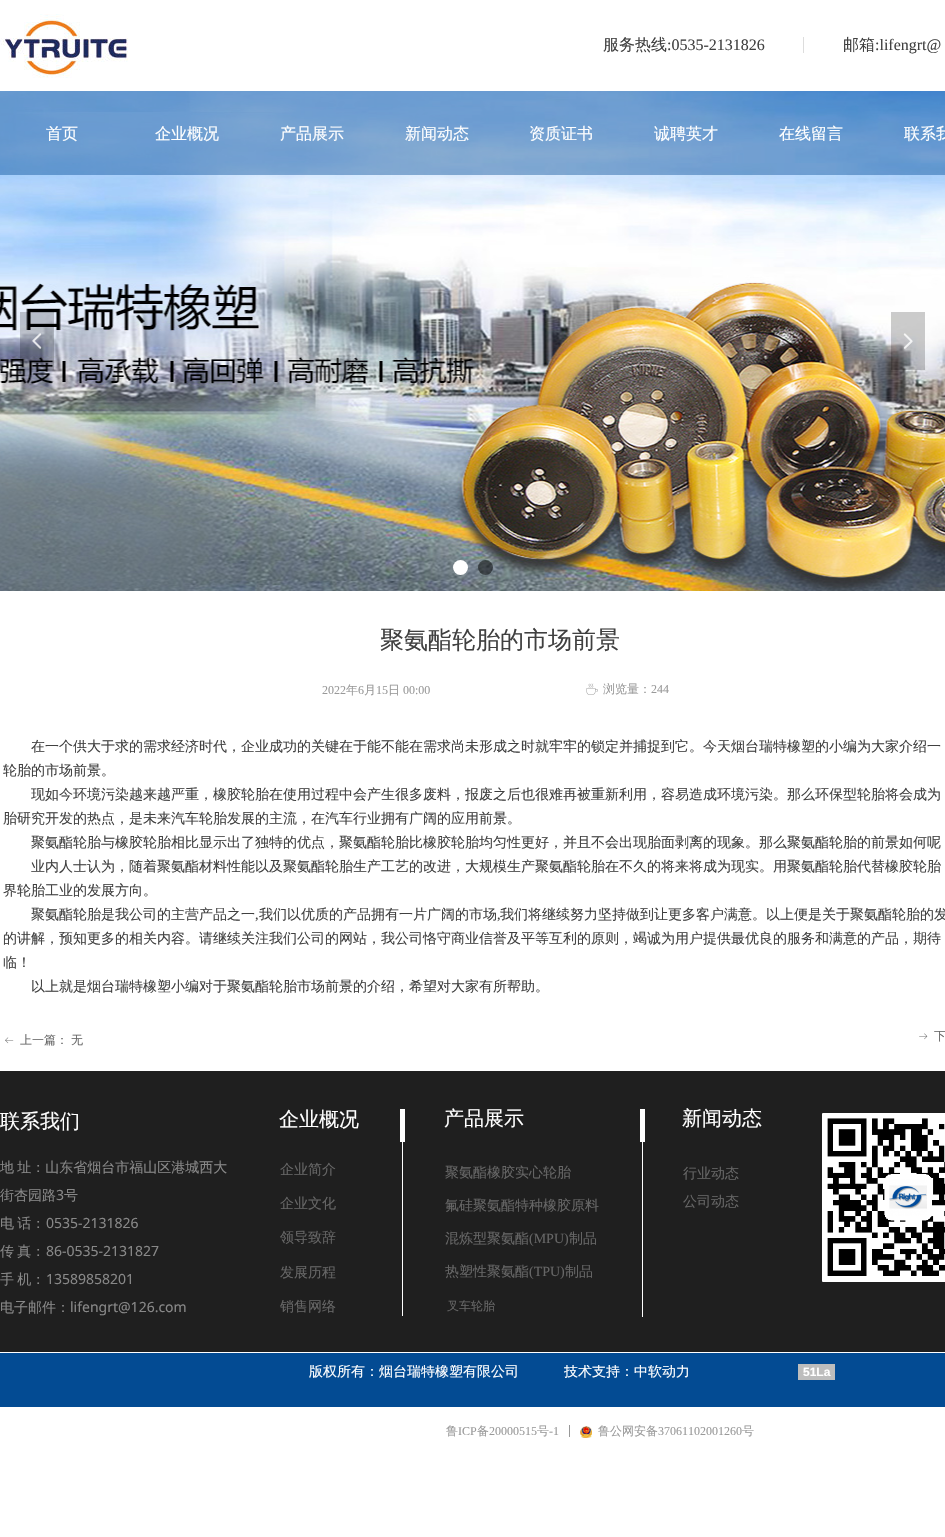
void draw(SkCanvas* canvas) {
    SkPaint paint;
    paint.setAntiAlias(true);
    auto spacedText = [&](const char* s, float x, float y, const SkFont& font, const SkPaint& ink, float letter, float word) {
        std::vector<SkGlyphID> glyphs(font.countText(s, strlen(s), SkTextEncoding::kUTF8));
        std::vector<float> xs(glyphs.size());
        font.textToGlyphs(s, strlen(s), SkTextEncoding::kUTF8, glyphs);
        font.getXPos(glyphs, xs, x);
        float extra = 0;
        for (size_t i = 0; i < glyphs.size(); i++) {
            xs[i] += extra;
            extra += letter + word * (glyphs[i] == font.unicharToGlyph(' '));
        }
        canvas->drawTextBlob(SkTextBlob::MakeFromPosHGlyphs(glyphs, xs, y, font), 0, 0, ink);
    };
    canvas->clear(0xFFFFFFFF);
    canvas->drawImageRect(SkImages::DeferredFromEncodedData(SkData::MakeFromFileName("img1.png")), SkRect::MakeXYWH(0, 14, 128, 64), SkSamplingOptions());
    SkFont font1(fontMgr->matchFamilyStyle("WenQuanYi Zen Hei", SkFontStyle(500, SkFontStyle::kNormal_Width, SkFontStyle::kUpright_Slant)), 16);
    font1.setSubpixel(true);
    paint.setColor(0xFF404040);
    canvas->drawString("服务热线", 603, 50, font1, paint);
    SkFont font2(fontMgr->matchFamilyStyle("Liberation Serif", SkFontStyle::Normal()), 16);
    font2.setSubpixel(true);
    canvas->drawString(":0535-2131826", 667, 50, font2, paint);
    paint.setColor(0xFFDDDDDD);
    canvas->drawRect(SkRect::MakeXYWH(803, 37, 1, 16), paint);
    paint.setColor(0xFF404040);
    canvas->drawString("邮箱", 843, 50, font1, paint);
    canvas->drawString(":lifengrt@", 875, 50, font2, paint);
    canvas->drawImageRect(SkImages::DeferredFromEncodedData(SkData::MakeFromFileName("img2.png")), SkRect::MakeXYWH(0, 91, 945, 500), SkSamplingOptions());
    paint.setColor(0x33000000);
    canvas->drawRect(SkRect::MakeXYWH(20, 312, 34, 58), paint);
    canvas->drawImageRect(SkImages::DeferredFromEncodedData(SkData::MakeFromFileName("img3.png")), SkRect::MakeXYWH(32, 333, 10, 16), SkSamplingOptions());
    canvas->drawRect(SkRect::MakeXYWH(891, 312, 34, 58), paint);
    canvas->drawImageRect(SkImages::DeferredFromEncodedData(SkData::MakeFromFileName("img4.png")), SkRect::MakeXYWH(903, 333, 10, 16), SkSamplingOptions());
    paint.setColor(0xFFFFFFFF);
    canvas->drawCircle(460.5f, 567.5f, 7.5f, paint);
    paint.setColor(0x80000000);
    canvas->drawCircle(485.5f, 567.5f, 7.5f, paint);
    paint.setColor(0x6B034B93);
    canvas->drawRect(SkRect::MakeXYWH(0, 91, 945, 84), paint);
    paint.setColor(0xFFFFFFFF);
    canvas->drawString("首页", 46, 139, font1, paint);
    canvas->drawString("企业概况", 155, 139, font1, paint);
    canvas->drawString("产品展示", 280, 139, font1, paint);
    canvas->drawString("新闻动态", 405, 139, font1, paint);
    canvas->drawString("资质证书", 529, 139, font1, paint);
    canvas->drawString("诚聘英才", 654, 139, font1, paint);
    canvas->drawString("在线留言", 779, 139, font1, paint);
    canvas->drawString("联系我", 904, 139, font1, paint);
    SkFont font3(fontMgr->matchFamilyStyle("WenQuanYi Zen Hei", SkFontStyle(500, SkFontStyle::kNormal_Width, SkFontStyle::kUpright_Slant)), 24);
    font3.setSubpixel(true);
    paint.setColor(0xFF404040);
    canvas->drawString("聚氨酯轮胎的市场前景", 380, 648, font3, paint);
    SkFont font4(fontMgr->matchFamilyStyle("Liberation Serif", SkFontStyle::Normal()), 12);
    font4.setSubpixel(true);
    paint.setColor(0xFF999999);
    canvas->drawString("2022", 322, 694, font4, paint);
    SkFont font5(fontMgr->matchFamilyStyle("WenQuanYi Zen Hei", SkFontStyle(500, SkFontStyle::kNormal_Width, SkFontStyle::kUpright_Slant)), 12);
    font5.setSubpixel(true);
    canvas->drawString("年", 346, 694, font5, paint);
    canvas->drawString("6", 358, 694, font4, paint);
    canvas->drawString("月", 364, 694, font5, paint);
    canvas->drawString("15", 376, 694, font4, paint);
    canvas->drawString("日", 388, 694, font5, paint);
    canvas->drawString("00:00", 403, 694, font4, paint);
    canvas->drawImageRect(SkImages::DeferredFromEncodedData(SkData::MakeFromFileName("img5.png")), SkRect::MakeXYWH(586, 683, 12, 12), SkSamplingOptions());
    canvas->drawString("浏览量：", 603, 693, font5, paint);
    canvas->drawString("244", 651, 693, font4, paint);
    SkFont font6(fontMgr->matchFamilyStyle("WenQuanYi Zen Hei", SkFontStyle(500, SkFontStyle::kNormal_Width, SkFontStyle::kUpright_Slant)), 14);
    font6.setSubpixel(true);
    paint.setColor(0xFF404040);
    canvas->drawString("在一个供大于求的需求经济时代，企业成功的关键在于能不能在需求尚未形成之时就牢牢的锁定并捕捉到它。今天烟台瑞特橡塑的小编为大家介绍一", 31, 751, font6, paint);
    canvas->drawString("轮胎的市场前景。", 3, 775, font6, paint);
    canvas->drawString("现如今环境污染越来越严重，橡胶轮胎在使用过程中会产生很多废料，报废之后也很难再被重新利用，容易造成环境污染。那么环保型轮胎将会成为", 31, 799, font6, paint);
    canvas->drawString("胎研究开发的热点，是未来汽车轮胎发展的主流，在汽车行业拥有广阔的应用前景。", 3, 823, font6, paint);
    canvas->drawString("聚氨酯轮胎与橡胶轮胎相比显示出了独特的优点，聚氨酯轮胎比橡胶轮胎均匀性更好，并且不会出现胎面剥离的现象。那么聚氨酯轮胎的前景如何呢", 31, 847, font6, paint);
    canvas->drawString("业内人士认为，随着聚氨酯材料性能以及聚氨酯轮胎生产工艺的改进，大规模生产聚氨酯轮胎在不久的将来将成为现实。用聚氨酯轮胎代替橡胶轮胎", 31, 871, font6, paint);
    canvas->drawString("界轮胎工业的发展方向。", 3, 895, font6, paint);
    canvas->drawString("聚氨酯轮胎是我公司的主营产品之一", 31, 919, font6, paint);
    SkFont font7(fontMgr->matchFamilyStyle("Liberation Serif", SkFontStyle::Normal()), 14);
    font7.setSubpixel(true);
    canvas->drawString(",", 255, 919, font7, paint);
    canvas->drawString("我们以优质的产品拥有一片广阔的市场", 259, 919, font6, paint);
    canvas->drawString(",", 497, 919, font7, paint);
    canvas->drawString("我们将继续努力坚持做到让更多客户满意。以上便是关于聚氨酯轮胎的发", 500, 919, font6, paint);
    canvas->drawString("的讲解，预知更多的相关内容。请继续关注我们公司的网站，我公司恪守商业信誉及平等互利的原则，竭诚为用户提供最优良的服务和满意的产品，期待", 3, 943, font6, paint);
    canvas->drawString("临！", 3, 967, font6, paint);
    canvas->drawString("以上就是烟台瑞特橡塑小编对于聚氨酯轮胎市场前景的介绍，希望对大家有所帮助。", 31, 991, font6, paint);
    canvas->drawImageRect(SkImages::DeferredFromEncodedData(SkData::MakeFromFileName("img6.png")), SkRect::MakeXYWH(5, 1037, 9, 7), SkSamplingOptions());
    paint.setColor(0xFF666666);
    canvas->drawString("上一篇：", 20, 1044, font5, paint);
    canvas->drawString("无", 71, 1044, font5, paint);
    canvas->drawImageRect(SkImages::DeferredFromEncodedData(SkData::MakeFromFileName("img7.png")), SkRect::MakeXYWH(919, 1033, 9, 7), SkSamplingOptions());
    canvas->drawString("下", 934, 1040, font5, paint);
    paint.setColor(0xFF034B93);
    canvas->drawRect(SkRect::MakeXYWH(0, 1353, 945, 54), paint);
    paint.setColor(0xFF1F1F1F);
    canvas->drawRect(SkRect::MakeXYWH(0, 1071, 945, 281), paint);
    SkFont font8(fontMgr->matchFamilyStyle("WenQuanYi Zen Hei", SkFontStyle(500, SkFontStyle::kNormal_Width, SkFontStyle::kUpright_Slant)), 20);
    font8.setSubpixel(true);
    paint.setColor(0xFFFFFFFF);
    canvas->drawString("联系我们", 0, 1128, font8, paint);
    paint.setColor(0xFF888888);
    spacedText("地 址：山东省烟台市福山区港城西大", 0, 1172, font6, paint, 0, -1);
    canvas->drawString("街杏园路", 0, 1200, font6, paint);
    SkFont font9(fontMgr->matchFamilyStyle("Noto Sans", SkFontStyle::Normal()), 14);
    font9.setSubpixel(true);
    canvas->drawString("3", 56, 1200, font9, paint);
    canvas->drawString("号", 64, 1200, font6, paint);
    spacedText("电 话：", 0, 1228, font6, paint, 0, -1);
    canvas->drawString("0535-2131826", 46, 1228, font9, paint);
    spacedText("传 真：", 0, 1256, font6, paint, 0, -1);
    canvas->drawString("86-0535-2131827", 46, 1256, font9, paint);
    spacedText("手 机：", 0, 1284, font6, paint, 0, -1);
    canvas->drawString("13589858201", 46, 1284, font9, paint);
    canvas->drawString("电子邮件：", 0, 1312, font6, paint);
    canvas->drawString("lifengrt@126.com", 70, 1312, font9, paint);
    paint.setColor(0xFFFFFFFF);
    canvas->drawString("企业概况", 279, 1126, font8, paint);
    canvas->drawRect(SkRect::MakeXYWH(400, 1109, 5, 33), paint);
    canvas->drawString("产品展示", 444, 1125, font8, paint);
    canvas->drawRect(SkRect::MakeXYWH(640, 1109, 5, 33), paint);
    canvas->drawString("新闻动态", 682, 1125, font8, paint);
    canvas->drawImageRect(SkImages::DeferredFromEncodedData(SkData::MakeFromFileName("img8.png")), SkRect::MakeXYWH(822, 1113, 123, 169), SkSamplingOptions());
    paint.setColor(0xFF666666);
    canvas->drawString("企业简介", 280, 1174, font6, paint);
    canvas->drawString("企业文化", 280, 1208, font6, paint);
    canvas->drawString("领导致辞", 280, 1242, font6, paint);
    canvas->drawString("发展历程", 280, 1277, font6, paint);
    canvas->drawString("销售网络", 280, 1311, font6, paint);
    paint.setColor(0xFFFFFFFF);
    canvas->drawRect(SkRect::MakeXYWH(402, 1142, 1, 174), paint);
    paint.setColor(0xFF666666);
    canvas->drawString("聚氨酯橡胶实心轮胎", 445, 1177, font6, paint);
    canvas->drawString("氟硅聚氨酯特种橡胶原料", 445, 1210, font6, paint);
    canvas->drawString("混炼型聚氨酯", 445, 1243, font6, paint);
    canvas->drawString("(MPU)", 529, 1243, font7, paint);
    canvas->drawString("制品", 569, 1243, font6, paint);
    canvas->drawString("热塑性聚氨酯", 445, 1276, font6, paint);
    canvas->drawString("(TPU)", 529, 1276, font7, paint);
    canvas->drawString("制品", 565, 1276, font6, paint);
    paint.setColor(0xFFFFFFFF);
    canvas->drawRect(SkRect::MakeXYWH(642, 1141, 1, 176), paint);
    paint.setColor(0xFF666666);
    canvas->drawString("行业动态", 683, 1178, font6, paint);
    canvas->drawString("公司动态", 683, 1206, font6, paint);
    canvas->drawString("叉车轮胎", 447, 1310, font5, paint);
    canvas->save();
    canvas->clipRect(SkRect::MakeXYWH(72, 1365, 855, 38));
    paint.setColor(0xFFFFFFFF);
    canvas->drawString("版权所有：烟台瑞特橡塑有限公司", 309, 1376, font6, paint);
    canvas->drawString("技术支持：中软动力", 564, 1376, font6, paint);
    canvas->restore();
    paint.setColor(0xFFBDBDBD);
    canvas->drawRect(SkRect::MakeXYWH(798, 1364, 37, 16), paint);
    SkFont font10(fontMgr->matchFamilyStyle("Liberation Sans", SkFontStyle::Bold()), 12);
    font10.setSubpixel(true);
    paint.setColor(0xFFFFFFFF);
    canvas->drawString("51La", 803, 1376, font10, paint);
    paint.setColor(0xFF999999);
    canvas->drawString("鲁", 446, 1435, font5, paint);
    canvas->drawString("ICP", 458, 1435, font4, paint);
    canvas->drawString("备", 477, 1435, font5, paint);
    canvas->drawString("20000515", 489, 1435, font4, paint);
    canvas->drawString("号", 537, 1435, font5, paint);
    canvas->drawString("-1", 549, 1435, font4, paint);
    paint.setColor(0xFF989898);
    canvas->drawRect(SkRect::MakeXYWH(569, 1425, 1, 12), paint);
    canvas->drawImageRect(SkImages::DeferredFromEncodedData(SkData::MakeFromFileName("img9.png")), SkRect::MakeXYWH(580, 1426, 12, 12), SkSamplingOptions());
    paint.setColor(0xFF999999);
    canvas->drawString("鲁公网安备", 598, 1435, font5, paint);
    canvas->drawString("37061102001260", 658, 1435, font4, paint);
    canvas->drawString("号", 742, 1435, font5, paint);
}
